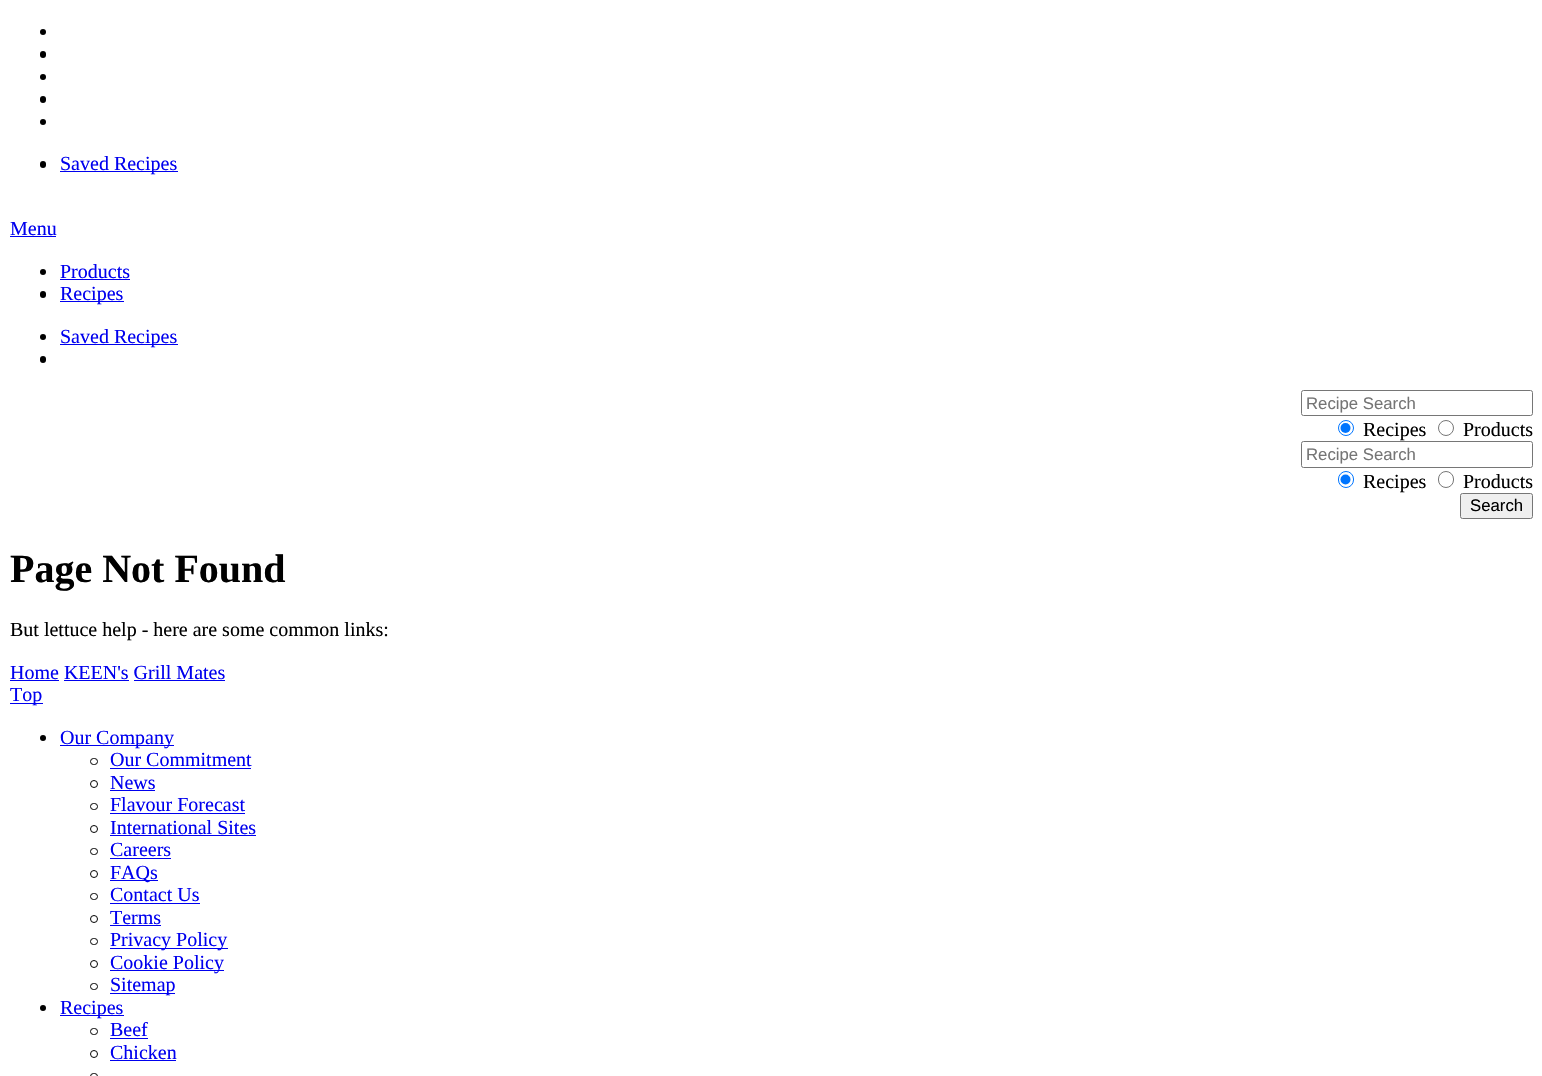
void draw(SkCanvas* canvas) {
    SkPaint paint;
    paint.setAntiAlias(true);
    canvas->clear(0xFFFFFFFF);
    paint.setColor(0xFF000000);
    canvas->drawCircle(43, 32, 3, paint);
    canvas->drawRoundRect(SkRect::MakeXYWH(40, 51, 6, 7), 3, 3, paint);
    canvas->drawCircle(43, 77, 3, paint);
    canvas->drawRoundRect(SkRect::MakeXYWH(40, 96, 6, 7), 3, 3, paint);
    canvas->drawCircle(43, 122, 3, paint);
    canvas->drawRoundRect(SkRect::MakeXYWH(40, 161, 6, 7), 3, 3, paint);
    paint.setColor(0xFF0000EE);
    canvas->drawRect(SkRect::MakeXYWH(60, 171, 118, 1), paint);
    SkFont font1(fontMgr->matchFamilyStyle("Liberation Serif", SkFontStyle::Normal()), 20);
    font1.setSubpixel(true);
    canvas->drawString("Saved Recipes", 60, 170, font1, paint);
    canvas->drawString("Menu", 10, 235, font1, paint);
    canvas->drawRect(SkRect::MakeXYWH(10, 236, 46, 1), paint);
    paint.setColor(0xFF000000);
    canvas->drawCircle(43, 272, 3, paint);
    paint.setColor(0xFF0000EE);
    canvas->drawString("Products", 60, 278, font1, paint);
    canvas->drawRect(SkRect::MakeXYWH(60, 279, 70, 1), paint);
    paint.setColor(0xFF000000);
    canvas->drawRoundRect(SkRect::MakeXYWH(40, 291, 6, 7), 3, 3, paint);
    paint.setColor(0xFF0000EE);
    canvas->drawRect(SkRect::MakeXYWH(60, 301, 64, 1), paint);
    canvas->drawString("Recipes", 60, 300, font1, paint);
    paint.setColor(0xFF000000);
    canvas->drawCircle(43, 337, 3, paint);
    paint.setColor(0xFF0000EE);
    canvas->drawRect(SkRect::MakeXYWH(60, 344, 118, 1), paint);
    canvas->drawString("Saved Recipes", 60, 343, font1, paint);
    paint.setColor(0xFF000000);
    canvas->drawRoundRect(SkRect::MakeXYWH(40, 356, 6, 7), 3, 3, paint);
    paint.setStyle(SkPaint::kStroke_Style);
    paint.setStrokeWidth(1);
    paint.setColor(0xFF767676);
    canvas->drawRoundRect(SkRect::MakeXYWH(1301.5f, 390.5f, 231, 25), 2, 2, paint);
    SkFont font2(fontMgr->matchFamilyStyle("Liberation Sans", SkFontStyle::Normal()), 16.75f);
    font2.setSubpixel(true);
    paint.setStyle(SkPaint::kFill_Style);
    paint.setColor(0xFF757575);
    canvas->drawString("Recipe Search", 1306, 409, font2, paint);
    paint.setStyle(SkPaint::kStroke_Style);
    paint.setColor(0xFF0075FF);
    canvas->drawCircle(1346, 428, 7.5f, paint);
    paint.setStyle(SkPaint::kFill_Style);
    canvas->drawCircle(1345.5f, 428, 5, paint);
    paint.setColor(0xFF000000);
    canvas->drawString("Recipes", 1363, 436, font1, paint);
    paint.setStyle(SkPaint::kStroke_Style);
    paint.setColor(0xFF767676);
    canvas->drawCircle(1446, 428, 7.5f, paint);
    paint.setStyle(SkPaint::kFill_Style);
    paint.setColor(0xFF000000);
    canvas->drawString("Products", 1463, 436, font1, paint);
    paint.setStyle(SkPaint::kStroke_Style);
    paint.setColor(0xFF767676);
    canvas->drawRoundRect(SkRect::MakeXYWH(1301.5f, 441.5f, 231, 26), 2, 2, paint);
    paint.setStyle(SkPaint::kFill_Style);
    paint.setColor(0xFF757575);
    canvas->drawString("Recipe Search", 1306, 460, font2, paint);
    paint.setStyle(SkPaint::kStroke_Style);
    paint.setColor(0xFF0075FF);
    canvas->drawRoundRect(SkRect::MakeXYWH(1338.5f, 471.5f, 15, 16), 7.5f, 7.5f, paint);
    paint.setStyle(SkPaint::kFill_Style);
    canvas->drawCircle(1345.5f, 479.5f, 5, paint);
    paint.setColor(0xFF000000);
    canvas->drawString("Recipes", 1363, 488, font1, paint);
    paint.setStyle(SkPaint::kStroke_Style);
    paint.setColor(0xFF767676);
    canvas->drawRoundRect(SkRect::MakeXYWH(1438.5f, 471.5f, 15, 16), 7.5f, 7.5f, paint);
    paint.setStyle(SkPaint::kFill_Style);
    paint.setColor(0xFF000000);
    canvas->drawString("Products", 1463, 488, font1, paint);
    paint.setColor(0xFFEFEFEF);
    canvas->drawRoundRect(SkRect::MakeXYWH(1460.5f, 493.5f, 72, 25), 2, 2, paint);
    paint.setStyle(SkPaint::kStroke_Style);
    paint.setColor(0xFF767676);
    canvas->drawRoundRect(SkRect::MakeXYWH(1460.5f, 493.5f, 72, 25), 2, 2, paint);
    paint.setStyle(SkPaint::kFill_Style);
    paint.setColor(0xFF000000);
    canvas->drawString("Search", 1470, 511, font2, paint);
    SkFont font3(fontMgr->matchFamilyStyle("Liberation Serif", SkFontStyle::Bold()), 40);
    font3.setSubpixel(true);
    canvas->drawString("Page Not Found", 10, 582, font3, paint);
    canvas->drawString("But lettuce help - here are some common links:", 10, 636, font1, paint);
    paint.setColor(0xFF0000EE);
    canvas->drawString("Home KEEN's Grill Mates", 10, 679, font1, paint);
    canvas->drawRect(SkRect::MakeXYWH(10, 680, 49, 1), paint);
    canvas->drawRect(SkRect::MakeXYWH(64, 680, 65, 1), paint);
    canvas->drawRect(SkRect::MakeXYWH(134, 680, 91, 1), paint);
    canvas->drawRect(SkRect::MakeXYWH(10, 703, 33, 1), paint);
    canvas->drawString("Top", 10, 701, font1, paint);
    paint.setColor(0xFF000000);
    canvas->drawCircle(43, 738, 3, paint);
    paint.setColor(0xFF0000EE);
    canvas->drawRect(SkRect::MakeXYWH(60, 745, 114, 1), paint);
    canvas->drawString("Our Company", 60, 744, font1, paint);
    paint.setStyle(SkPaint::kStroke_Style);
    paint.setColor(0xFF000000);
    canvas->drawRoundRect(SkRect::MakeXYWH(90.5f, 758.5f, 7, 6), 3, 3, paint);
    paint.setStyle(SkPaint::kFill_Style);
    paint.setColor(0xFF0000EE);
    canvas->drawString("Our Commitment", 110, 766, font1, paint);
    canvas->drawRect(SkRect::MakeXYWH(110, 768, 141, 1), paint);
    paint.setStyle(SkPaint::kStroke_Style);
    paint.setColor(0xFF000000);
    canvas->drawCircle(94, 784, 3.5f, paint);
    paint.setStyle(SkPaint::kFill_Style);
    paint.setColor(0xFF0000EE);
    canvas->drawString("News", 110, 789, font1, paint);
    canvas->drawRect(SkRect::MakeXYWH(110, 790, 45, 1), paint);
    paint.setStyle(SkPaint::kStroke_Style);
    paint.setColor(0xFF000000);
    canvas->drawRoundRect(SkRect::MakeXYWH(90.5f, 803.5f, 7, 6), 3, 3, paint);
    paint.setStyle(SkPaint::kFill_Style);
    paint.setColor(0xFF0000EE);
    canvas->drawString("Flavour Forecast", 110, 811, font1, paint);
    canvas->drawRect(SkRect::MakeXYWH(110, 813, 135, 1), paint);
    paint.setStyle(SkPaint::kStroke_Style);
    paint.setColor(0xFF000000);
    canvas->drawCircle(94, 829, 3.5f, paint);
    paint.setStyle(SkPaint::kFill_Style);
    paint.setColor(0xFF0000EE);
    canvas->drawString("International Sites", 110, 834, font1, paint);
    canvas->drawRect(SkRect::MakeXYWH(110, 835, 146, 1), paint);
    paint.setStyle(SkPaint::kStroke_Style);
    paint.setColor(0xFF000000);
    canvas->drawRoundRect(SkRect::MakeXYWH(90.5f, 848.5f, 7, 6), 3, 3, paint);
    paint.setStyle(SkPaint::kFill_Style);
    paint.setColor(0xFF0000EE);
    canvas->drawString("Careers", 110, 856, font1, paint);
    canvas->drawRect(SkRect::MakeXYWH(110, 858, 61, 1), paint);
    paint.setStyle(SkPaint::kStroke_Style);
    paint.setColor(0xFF000000);
    canvas->drawCircle(94, 874, 3.5f, paint);
    paint.setStyle(SkPaint::kFill_Style);
    paint.setColor(0xFF0000EE);
    canvas->drawRect(SkRect::MakeXYWH(110, 880, 48, 1), paint);
    canvas->drawString("FAQs", 110, 879, font1, paint);
    paint.setStyle(SkPaint::kStroke_Style);
    paint.setColor(0xFF000000);
    canvas->drawRoundRect(SkRect::MakeXYWH(90.5f, 893.5f, 7, 6), 3, 3, paint);
    paint.setStyle(SkPaint::kFill_Style);
    paint.setColor(0xFF0000EE);
    canvas->drawString("Contact Us", 110, 901, font1, paint);
    canvas->drawRect(SkRect::MakeXYWH(110, 903, 90, 1), paint);
    paint.setStyle(SkPaint::kStroke_Style);
    paint.setColor(0xFF000000);
    canvas->drawCircle(94, 919, 3.5f, paint);
    paint.setStyle(SkPaint::kFill_Style);
    paint.setColor(0xFF0000EE);
    canvas->drawString("Terms", 110, 924, font1, paint);
    canvas->drawRect(SkRect::MakeXYWH(110, 925, 51, 1), paint);
    paint.setStyle(SkPaint::kStroke_Style);
    paint.setColor(0xFF000000);
    canvas->drawRoundRect(SkRect::MakeXYWH(90.5f, 938.5f, 7, 6), 3, 3, paint);
    paint.setStyle(SkPaint::kFill_Style);
    paint.setColor(0xFF0000EE);
    canvas->drawRect(SkRect::MakeXYWH(110, 948, 118, 1), paint);
    canvas->drawString("Privacy Policy", 110, 946, font1, paint);
    paint.setStyle(SkPaint::kStroke_Style);
    paint.setColor(0xFF000000);
    canvas->drawCircle(94, 964, 3.5f, paint);
    paint.setStyle(SkPaint::kFill_Style);
    paint.setColor(0xFF0000EE);
    canvas->drawRect(SkRect::MakeXYWH(110, 970, 114, 1), paint);
    canvas->drawString("Cookie Policy", 110, 969, font1, paint);
    paint.setStyle(SkPaint::kStroke_Style);
    paint.setColor(0xFF000000);
    canvas->drawRoundRect(SkRect::MakeXYWH(90.5f, 983.5f, 7, 6), 3, 3, paint);
    paint.setStyle(SkPaint::kFill_Style);
    paint.setColor(0xFF0000EE);
    canvas->drawRect(SkRect::MakeXYWH(110, 993, 65, 1), paint);
    canvas->drawString("Sitemap", 110, 991, font1, paint);
    paint.setColor(0xFF000000);
    canvas->drawCircle(43, 1008, 3, paint);
    paint.setColor(0xFF0000EE);
    canvas->drawRect(SkRect::MakeXYWH(60, 1015, 64, 1), paint);
    canvas->drawString("Recipes", 60, 1014, font1, paint);
    paint.setStyle(SkPaint::kStroke_Style);
    paint.setColor(0xFF000000);
    canvas->drawRoundRect(SkRect::MakeXYWH(90.5f, 1028.5f, 7, 6), 3, 3, paint);
    paint.setStyle(SkPaint::kFill_Style);
    paint.setColor(0xFF0000EE);
    canvas->drawString("Beef", 110, 1036, font1, paint);
    canvas->drawRect(SkRect::MakeXYWH(110, 1038, 38, 1), paint);
    paint.setStyle(SkPaint::kStroke_Style);
    paint.setColor(0xFF000000);
    canvas->drawCircle(94, 1054, 3.5f, paint);
    paint.setStyle(SkPaint::kFill_Style);
    paint.setColor(0xFF0000EE);
    canvas->drawString("Chicken", 110, 1059, font1, paint);
    canvas->drawRect(SkRect::MakeXYWH(110, 1060, 66, 1), paint);
    paint.setStyle(SkPaint::kStroke_Style);
    paint.setColor(0xFF000000);
    canvas->drawRoundRect(SkRect::MakeXYWH(90.5f, 1073.5f, 7, 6), 3, 3, paint);
}
